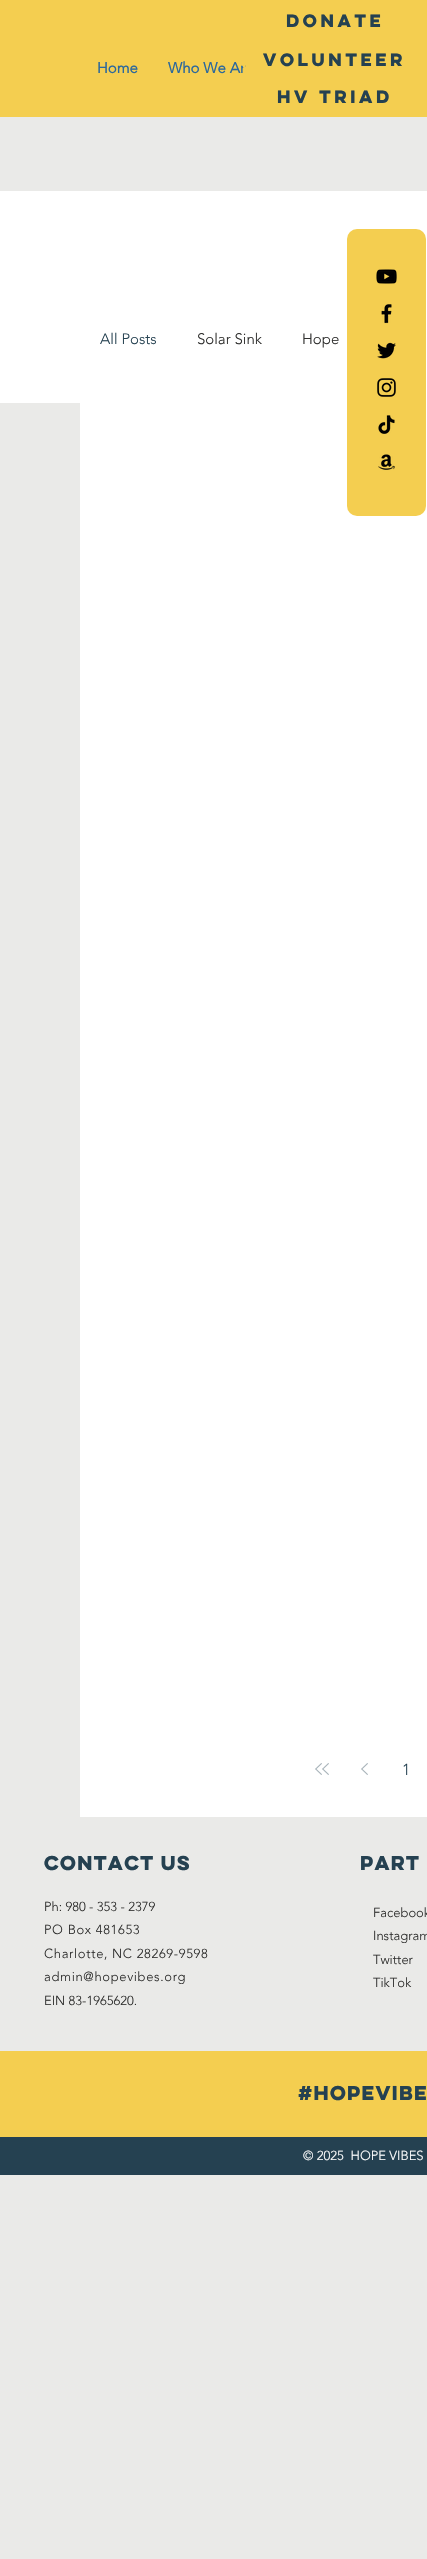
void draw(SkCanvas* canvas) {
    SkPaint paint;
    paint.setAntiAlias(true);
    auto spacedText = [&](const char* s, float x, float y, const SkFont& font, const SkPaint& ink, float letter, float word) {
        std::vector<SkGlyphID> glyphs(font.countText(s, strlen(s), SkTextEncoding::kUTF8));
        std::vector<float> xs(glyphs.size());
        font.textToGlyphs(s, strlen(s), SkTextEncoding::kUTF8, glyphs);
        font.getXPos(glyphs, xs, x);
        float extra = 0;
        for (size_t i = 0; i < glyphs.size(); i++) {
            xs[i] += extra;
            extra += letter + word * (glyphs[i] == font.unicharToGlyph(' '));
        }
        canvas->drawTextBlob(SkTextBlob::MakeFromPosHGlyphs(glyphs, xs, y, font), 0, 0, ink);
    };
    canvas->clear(0xFFEAEAE8);
    paint.setColor(0xFFF4CE50);
    canvas->drawRect(SkRect::MakeXYWH(0, 0, 427, 117), paint);
    SkFont font1(fontMgr->matchFamilyStyle("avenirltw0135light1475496", SkFontStyle::Bold()), 15);
    font1.setSubpixel(true);
    paint.setColor(0xFF2B689C);
    canvas->drawString("Home", 97, 73, font1, paint);
    canvas->drawString("Who We Ar", 168, 73, font1, paint);
    SkFont font2(fontMgr->matchFamilyStyle("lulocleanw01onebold", SkFontStyle::Bold()), 16);
    font2.setSubpixel(true);
    paint.setColor(0xFF254151);
    canvas->drawString("DONATE", 286, 27, font2, paint);
    paint.setColor(0xFFF4CE50);
    canvas->drawRect(SkRect::MakeXYWH(243, 65, 2, 2), paint);
    paint.setColor(0xFF254151);
    canvas->drawString("Volunteer", 263, 66, font2, paint);
    canvas->drawString("HV Triad", 277, 103, font2, paint);
    paint.setColor(0xFFFFFFFF);
    canvas->drawRect(SkRect::MakeXYWH(0, 191, 427, 212), paint);
    canvas->drawRect(SkRect::MakeXYWH(80, 403, 347, 1414), paint);
    paint.setColor(0xFFF4CE50);
    canvas->drawRoundRect(SkRect::MakeXYWH(347, 229, 79, 287), 10, 10, paint);
    canvas->drawImageRect(SkImages::DeferredFromEncodedData(SkData::MakeFromFileName("img1.png")), SkRect::MakeXYWH(376, 269, 21, 15), SkSamplingOptions());
    canvas->drawImageRect(SkImages::DeferredFromEncodedData(SkData::MakeFromFileName("img2.png")), SkRect::MakeXYWH(381, 304, 11, 20), SkSamplingOptions());
    canvas->drawImageRect(SkImages::DeferredFromEncodedData(SkData::MakeFromFileName("img3.png")), SkRect::MakeXYWH(377, 342, 19, 17), SkSamplingOptions());
    canvas->drawImageRect(SkImages::DeferredFromEncodedData(SkData::MakeFromFileName("img4.png")), SkRect::MakeXYWH(377, 378, 19, 19), SkSamplingOptions());
    canvas->drawImageRect(SkImages::DeferredFromEncodedData(SkData::MakeFromFileName("img5.png")), SkRect::MakeXYWH(378, 415, 17, 19), SkSamplingOptions());
    canvas->drawImageRect(SkImages::DeferredFromEncodedData(SkData::MakeFromFileName("img6.png")), SkRect::MakeXYWH(378, 454, 17, 16), SkSamplingOptions());
    SkFont font3(fontMgr->matchFamilyStyle("avenirltw0135light1475496", SkFontStyle(300, SkFontStyle::kNormal_Width, SkFontStyle::kUpright_Slant)), 15);
    font3.setSubpixel(true);
    paint.setColor(0xFF254151);
    canvas->drawString("All Posts", 100, 344, font3, paint);
    paint.setColor(0xFF2F2F2E);
    canvas->drawString("Solar Sink", 197, 344, font3, paint);
    canvas->drawString("Hope", 302, 344, font3, paint);
    canvas->drawImageRect(SkImages::DeferredFromEncodedData(SkData::MakeFromFileName("img7.png")), SkRect::MakeXYWH(315, 1763, 7, 12), SkSamplingOptions());
    canvas->drawImageRect(SkImages::DeferredFromEncodedData(SkData::MakeFromFileName("img7.png")), SkRect::MakeXYWH(322, 1763, 7, 12), SkSamplingOptions());
    canvas->drawImageRect(SkImages::DeferredFromEncodedData(SkData::MakeFromFileName("img7.png")), SkRect::MakeXYWH(361, 1763, 7, 12), SkSamplingOptions());
    SkFont font4(fontMgr->matchFamilyStyle("avenirltw0135light1475496", SkFontStyle(300, SkFontStyle::kNormal_Width, SkFontStyle::kUpright_Slant)), 16);
    font4.setSubpixel(true);
    paint.setColor(0xFF254151);
    canvas->drawString("1", 402, 1775, font4, paint);
    SkFont font5(fontMgr->matchFamilyStyle("lulocleanw01onebold", SkFontStyle::Bold()), 18);
    font5.setSubpixel(true);
    spacedText("Contact Us", 44, 1870, font5, paint, -2.75f, 0);
    spacedText("Part", 360, 1870, font5, paint, -2.75f, 0);
    SkFont font6(fontMgr->matchFamilyStyle("avenirltw0135light1475496", SkFontStyle(300, SkFontStyle::kNormal_Width, SkFontStyle::kUpright_Slant)), 13);
    font6.setSubpixel(true);
    paint.setColor(0xFF2F2F2E);
    canvas->drawString("Ph: 980 - 353 - 2379", 44, 1911, font6, paint);
    spacedText("PO Box 481653", 44, 1934, font6, paint, 0.65f, 0);
    spacedText("Charlotte, NC 28269-9598", 44, 1958, font6, paint, 0.65f, 0);
    spacedText("admin@hopevibes.org", 44, 1981, font6, paint, 0.65f, 0);
    canvas->drawString("EIN 83-1965620.", 44, 2005, font6, paint);
    canvas->drawString("Facebook", 373, 1917, font6, paint);
    canvas->drawString("Instagram", 373, 1940, font6, paint);
    canvas->drawString("Twitter", 373, 1964, font6, paint);
    canvas->drawString("TikTok", 373, 1987, font6, paint);
    paint.setColor(0xFFF4CE50);
    canvas->drawRect(SkRect::MakeXYWH(0, 2051, 427, 86), paint);
    paint.setColor(0xFF254151);
    spacedText("#HOPEVIBE", 298, 2100, font5, paint, -2.75f, 0);
    canvas->drawRect(SkRect::MakeXYWH(0, 2137, 427, 38), paint);
    paint.setColor(0xFFFFFFFF);
    canvas->drawString("© 2025  HOPE VIBES", 303, 2160, font6, paint);
}
